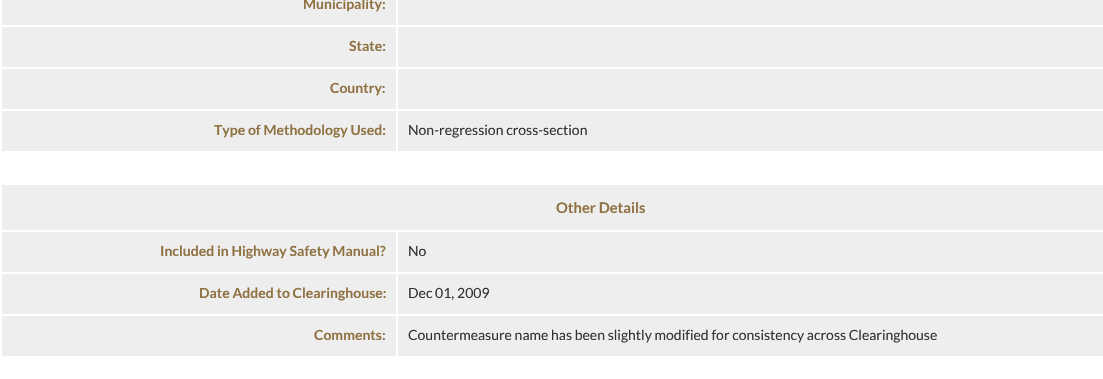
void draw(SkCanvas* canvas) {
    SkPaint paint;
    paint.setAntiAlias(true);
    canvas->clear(0xFFFFFFFF);
    paint.setColor(0xFFEEEEEE);
    canvas->drawRect(SkRect::MakeXYWH(2, 0, 394, 25), paint);
    SkFont font1(fontMgr->matchFamilyStyle("Lato", SkFontStyle::Bold()), 14);
    font1.setSubpixel(true);
    paint.setColor(0xFF8F7242);
    canvas->drawString("Municipality:", 303, 9, font1, paint);
    paint.setColor(0xFFEEEEEE);
    canvas->drawRect(SkRect::MakeXYWH(398, 0, 705, 25), paint);
    canvas->drawRect(SkRect::MakeXYWH(2, 27, 394, 40), paint);
    paint.setColor(0xFF8F7242);
    canvas->drawString("State:", 349, 51, font1, paint);
    paint.setColor(0xFFEEEEEE);
    canvas->drawRect(SkRect::MakeXYWH(398, 27, 705, 40), paint);
    canvas->drawRect(SkRect::MakeXYWH(2, 69, 394, 40), paint);
    paint.setColor(0xFF8F7242);
    canvas->drawString("Country:", 330, 93, font1, paint);
    paint.setColor(0xFFEEEEEE);
    canvas->drawRect(SkRect::MakeXYWH(398, 69, 705, 40), paint);
    canvas->drawRect(SkRect::MakeXYWH(2, 111, 394, 40), paint);
    paint.setColor(0xFF8F7242);
    canvas->drawString("Type of Methodology Used:", 214, 135, font1, paint);
    paint.setColor(0xFFEEEEEE);
    canvas->drawRect(SkRect::MakeXYWH(398, 111, 705, 40), paint);
    SkFont font2(fontMgr->matchFamilyStyle("Lato", SkFontStyle::Normal()), 14);
    font2.setSubpixel(true);
    paint.setColor(0xFF333333);
    canvas->drawString("Non-regression cross-section", 408, 135, font2, paint);
    paint.setColor(0xFFEEEEEE);
    canvas->drawRect(SkRect::MakeXYWH(2, 185, 1101, 45), paint);
    SkFont font3(fontMgr->matchFamilyStyle("Lato", SkFontStyle::Bold()), 14.75f);
    font3.setSubpixel(true);
    paint.setColor(0xFF8F7242);
    canvas->drawString("Other Details", 556, 213, font3, paint);
    paint.setColor(0xFFEEEEEE);
    canvas->drawRect(SkRect::MakeXYWH(2, 232, 394, 40), paint);
    paint.setColor(0xFF8F7242);
    canvas->drawString("Included in Highway Safety Manual?", 160, 256, font1, paint);
    paint.setColor(0xFFEEEEEE);
    canvas->drawRect(SkRect::MakeXYWH(398, 232, 705, 40), paint);
    paint.setColor(0xFF333333);
    canvas->drawString("No", 408, 256, font2, paint);
    paint.setColor(0xFFEEEEEE);
    canvas->drawRect(SkRect::MakeXYWH(2, 274, 394, 40), paint);
    paint.setColor(0xFF8F7242);
    canvas->drawString("Date Added to Clearinghouse:", 199, 298, font1, paint);
    paint.setColor(0xFFEEEEEE);
    canvas->drawRect(SkRect::MakeXYWH(398, 274, 705, 40), paint);
    paint.setColor(0xFF333333);
    canvas->drawString("Dec 01, 2009", 408, 298, font2, paint);
    paint.setColor(0xFFEEEEEE);
    canvas->drawRect(SkRect::MakeXYWH(2, 316, 394, 40), paint);
    paint.setColor(0xFF8F7242);
    canvas->drawString("Comments:", 314, 340, font1, paint);
    paint.setColor(0xFFEEEEEE);
    canvas->drawRect(SkRect::MakeXYWH(398, 316, 705, 40), paint);
    paint.setColor(0xFF333333);
    canvas->drawString("Countermeasure name has been slightly modified for consistency across Clearinghouse", 408, 340, font2, paint);
}
